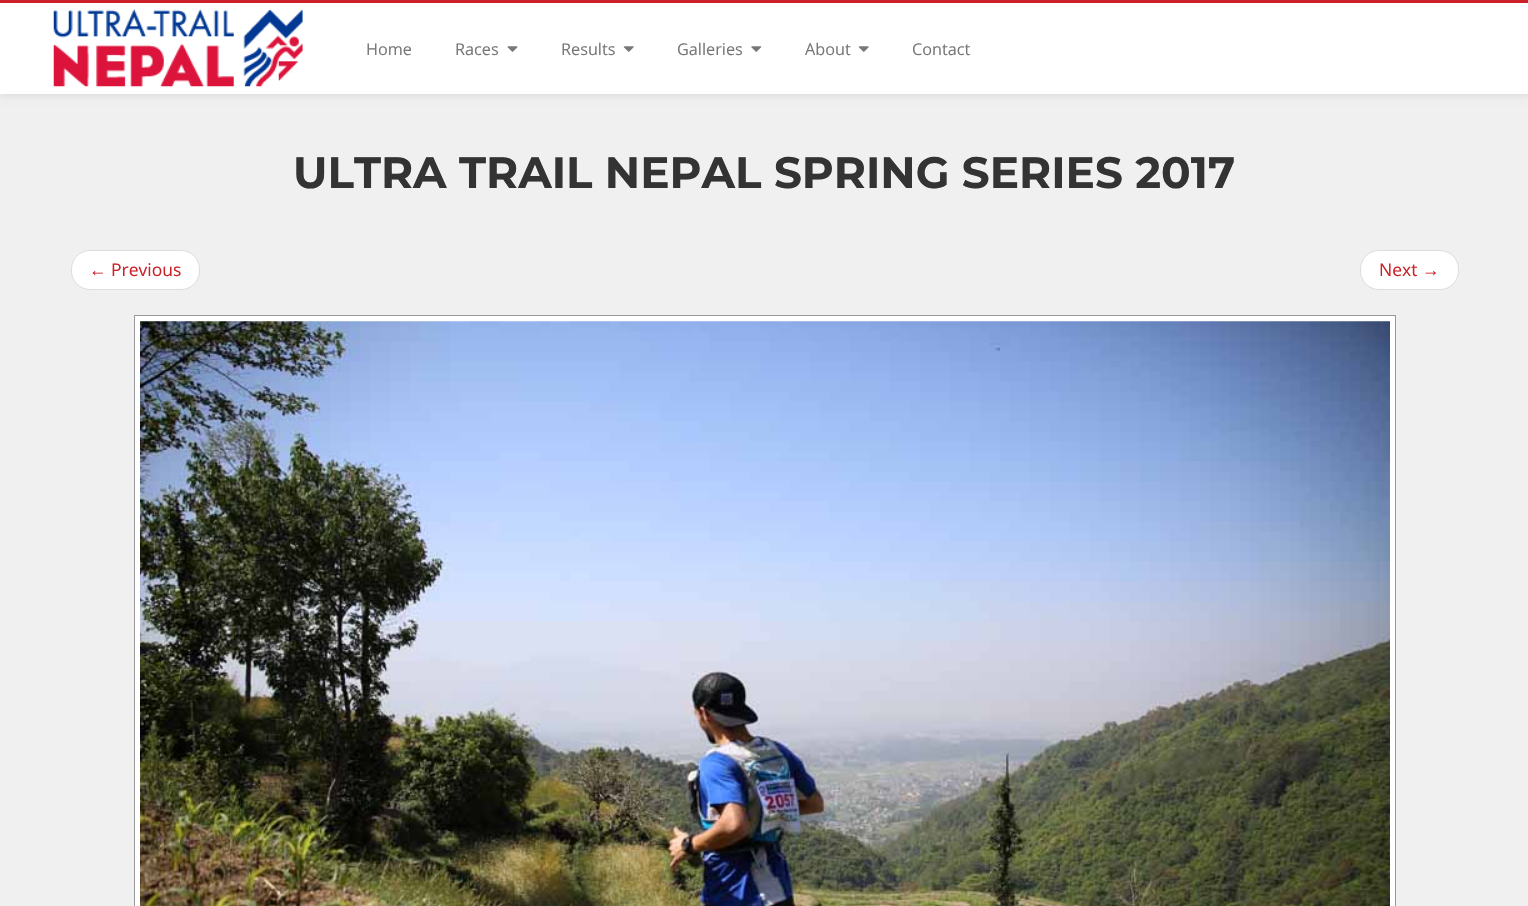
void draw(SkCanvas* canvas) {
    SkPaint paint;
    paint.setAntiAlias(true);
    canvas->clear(0xFFF0F0F0);
    paint.setColor(0x1A000000);
    paint.setMaskFilter(SkMaskFilter::MakeBlur(kNormal_SkBlurStyle, 4));
    canvas->drawRect(SkRect::MakeXYWH(-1, -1, 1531, 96), paint);
    paint.setMaskFilter(nullptr);
    paint.setColor(0xFFFFFFFF);
    canvas->drawRect(SkRect::MakeXYWH(0, 3, 1528, 91), paint);
    paint.setColor(0xFFCB2027);
    canvas->drawRect(SkRect::MakeXYWH(0, 0, 1528, 3), paint);
    canvas->drawImageRect(SkImages::DeferredFromEncodedData(SkData::MakeFromFileName("img1.png")), SkRect::MakeXYWH(53, 8, 250, 79), SkSamplingOptions());
    SkFont font1(fontMgr->matchFamilyStyle("Open Sans", SkFontStyle::Normal()), 16.25f);
    font1.setSubpixel(true);
    paint.setColor(0xFF777777);
    canvas->drawString("Home", 366, 55, font1, paint);
    canvas->drawString("Races", 455, 55, font1, paint);
    canvas->drawImageRect(SkImages::DeferredFromEncodedData(SkData::MakeFromFileName("img2.png")), SkRect::MakeXYWH(507, 46, 11, 6), SkSamplingOptions());
    canvas->drawString("Results", 561, 55, font1, paint);
    canvas->drawImageRect(SkImages::DeferredFromEncodedData(SkData::MakeFromFileName("img3.png")), SkRect::MakeXYWH(623, 46, 11, 6), SkSamplingOptions());
    canvas->drawString("Galleries", 677, 55, font1, paint);
    canvas->drawImageRect(SkImages::DeferredFromEncodedData(SkData::MakeFromFileName("img4.png")), SkRect::MakeXYWH(751, 46, 11, 6), SkSamplingOptions());
    canvas->drawString("About", 805, 55, font1, paint);
    canvas->drawImageRect(SkImages::DeferredFromEncodedData(SkData::MakeFromFileName("img3.png")), SkRect::MakeXYWH(858, 46, 11, 6), SkSamplingOptions());
    canvas->drawString("Contact", 912, 55, font1, paint);
    SkFont font2(fontMgr->matchFamilyStyle("Montserrat", SkFontStyle::Bold()), 43.75f);
    font2.setSubpixel(true);
    paint.setColor(0xFF333333);
    canvas->drawString("ULTRA TRAIL NEPAL SPRING SERIES 2017", 293, 188, font2, paint);
    paint.setColor(0xFFFFFFFF);
    canvas->drawRoundRect(SkRect::MakeXYWH(71.5f, 250.5f, 128, 39), 18.5f, 18.5f, paint);
    paint.setStyle(SkPaint::kStroke_Style);
    paint.setStrokeWidth(1);
    paint.setColor(0xFFDDDDDD);
    canvas->drawRoundRect(SkRect::MakeXYWH(71.5f, 250.5f, 128, 39), 18.5f, 18.5f, paint);
    SkFont font3(fontMgr->matchFamilyStyle("Liberation Sans", SkFontStyle::Normal()), 17.5f);
    font3.setSubpixel(true);
    paint.setStyle(SkPaint::kFill_Style);
    paint.setColor(0xFFCB2027);
    canvas->drawString("←", 89, 276, font3, paint);
    SkFont font4(fontMgr->matchFamilyStyle("Open Sans", SkFontStyle::Normal()), 17.5f);
    font4.setSubpixel(true);
    canvas->drawString("Previous", 111, 276, font4, paint);
    paint.setColor(0xFFFFFFFF);
    canvas->drawRoundRect(SkRect::MakeXYWH(1360.5f, 250.5f, 98, 39), 18.5f, 18.5f, paint);
    paint.setStyle(SkPaint::kStroke_Style);
    paint.setColor(0xFFDDDDDD);
    canvas->drawRoundRect(SkRect::MakeXYWH(1360.5f, 250.5f, 98, 39), 18.5f, 18.5f, paint);
    paint.setStyle(SkPaint::kFill_Style);
    paint.setColor(0xFFCB2027);
    canvas->drawString("Next", 1379, 276, font4, paint);
    canvas->drawString("→", 1422, 276, font3, paint);
    paint.setColor(0xFFFFFFFF);
    canvas->drawRect(SkRect::MakeXYWH(134.5f, 315.5f, 1261, 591), paint);
    paint.setStyle(SkPaint::kStroke_Style);
    paint.setColor(0xFF999999);
    canvas->drawRect(SkRect::MakeXYWH(134.5f, 315.5f, 1261, 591), paint);
    canvas->drawImageRect(SkImages::DeferredFromEncodedData(SkData::MakeFromFileName("img5.png")), SkRect::MakeXYWH(140, 321, 1250, 585), SkSamplingOptions());
}
